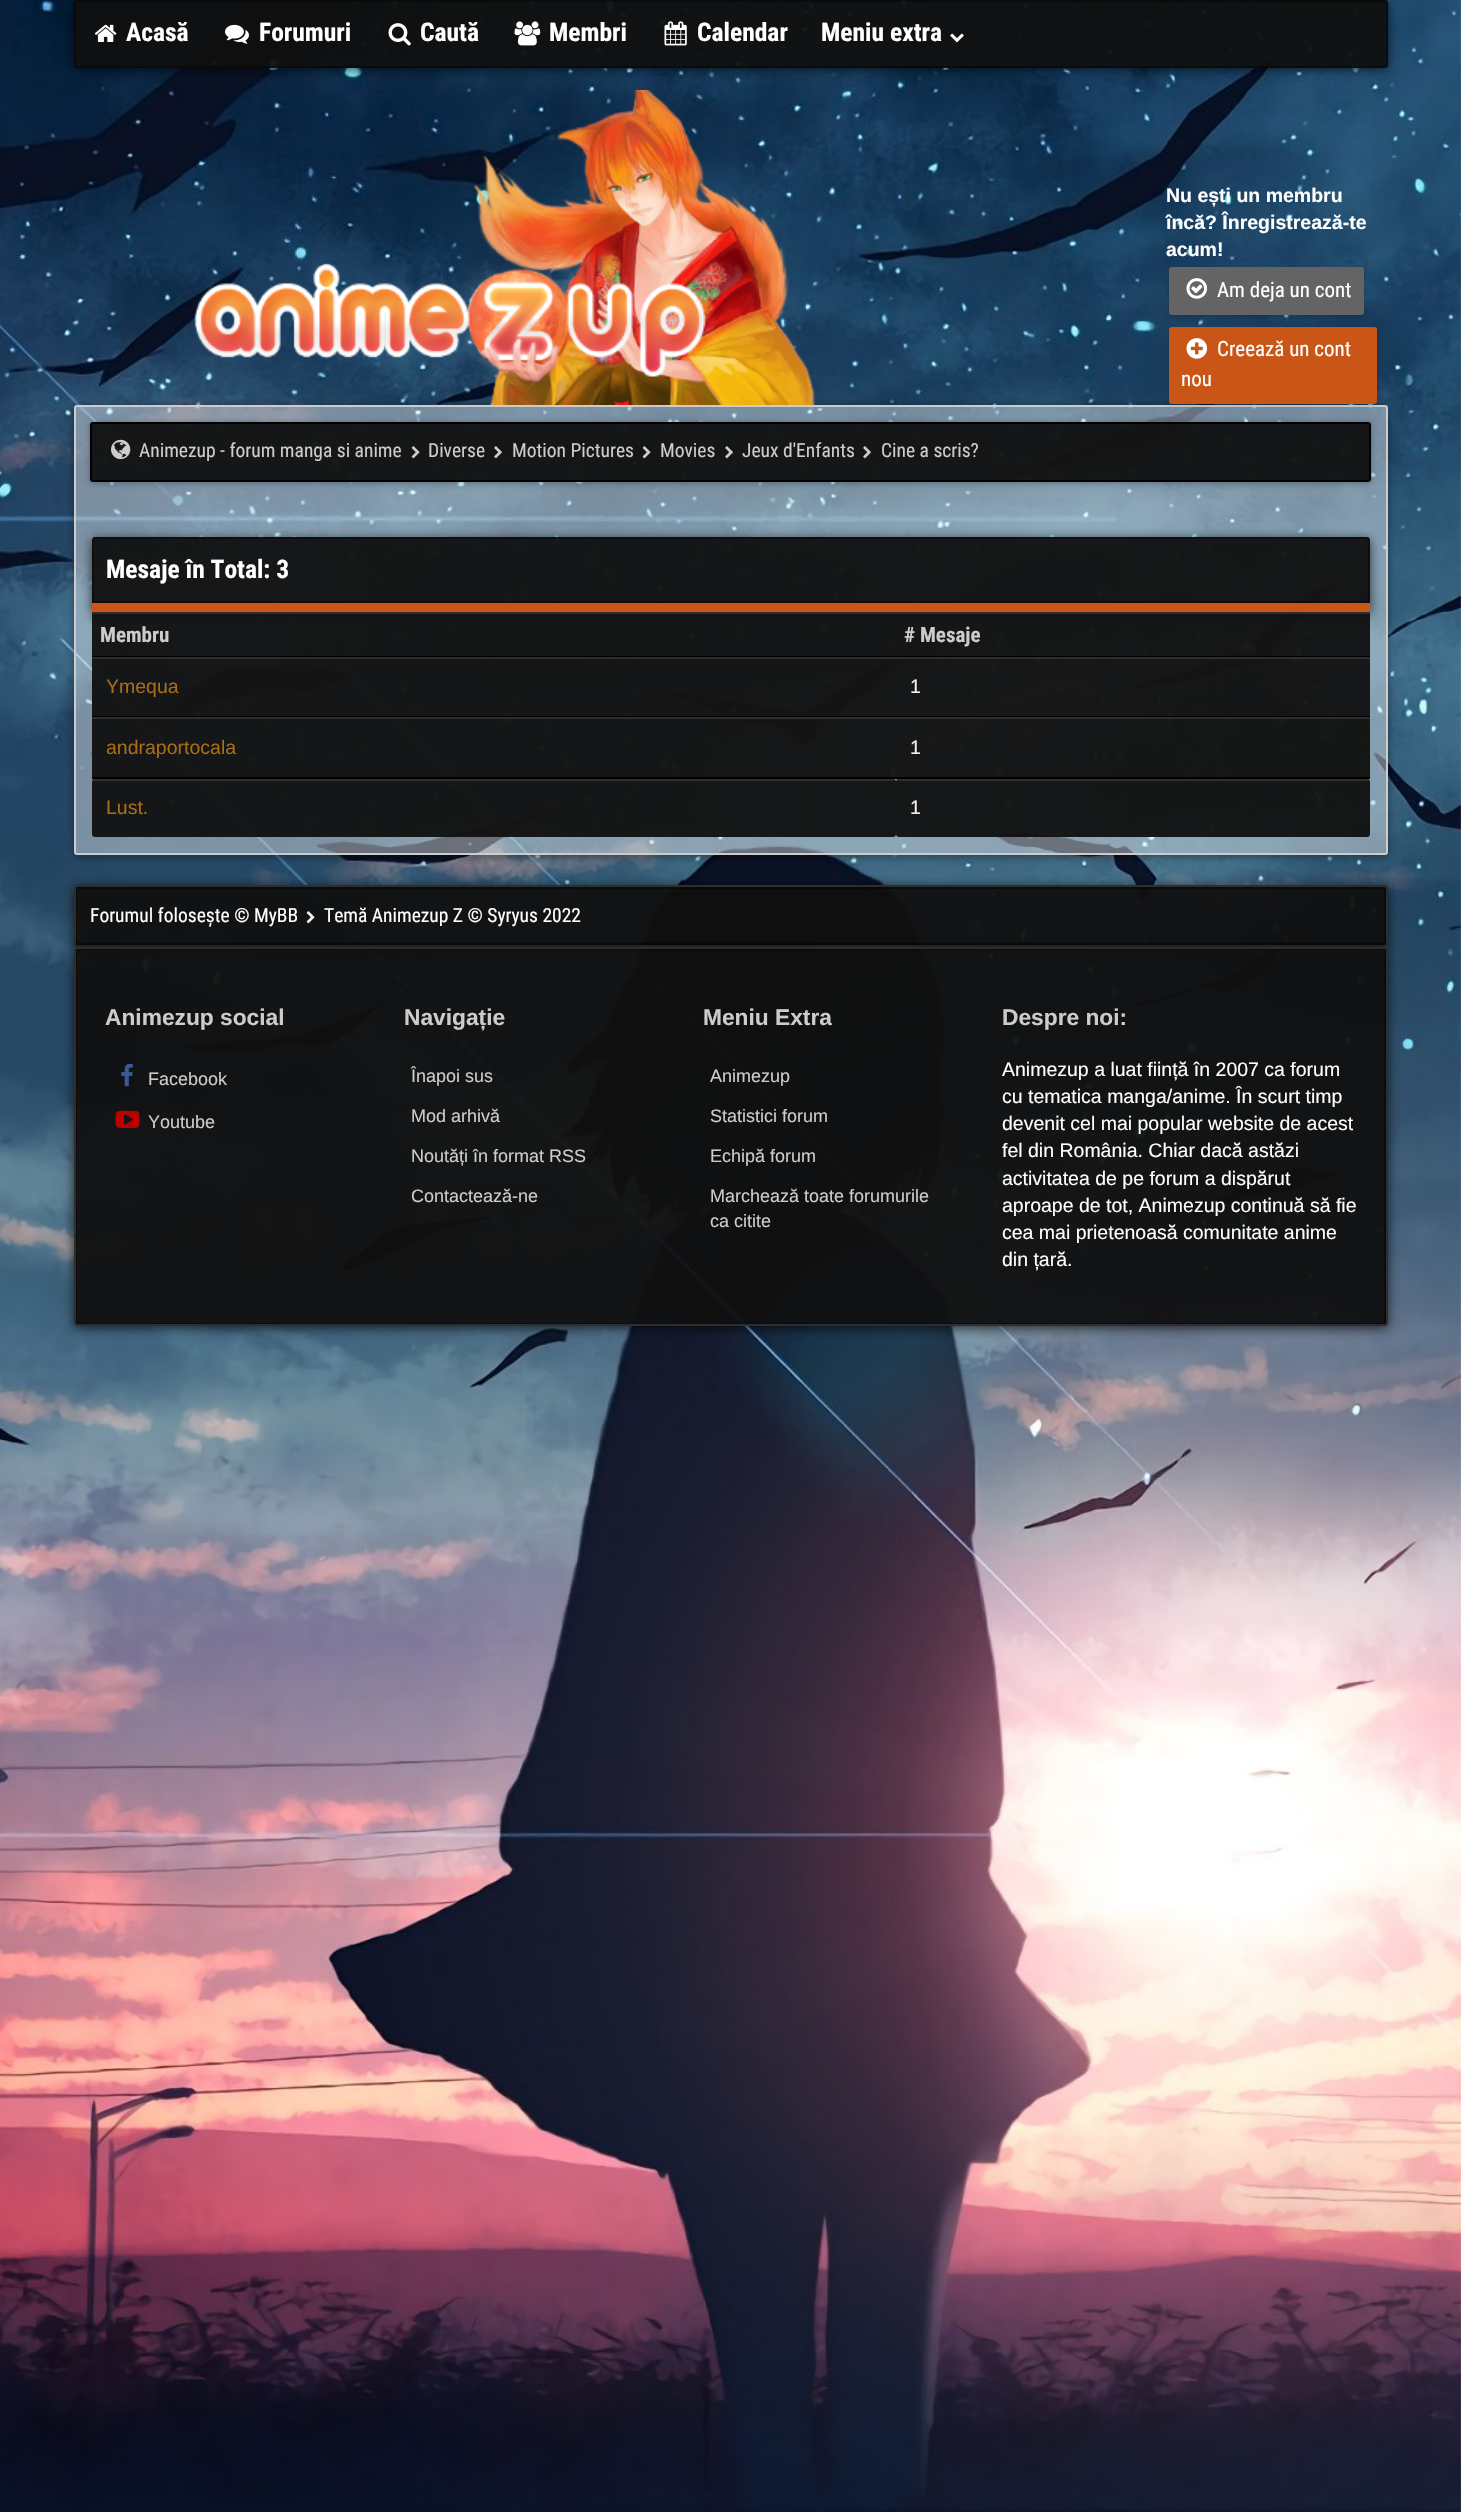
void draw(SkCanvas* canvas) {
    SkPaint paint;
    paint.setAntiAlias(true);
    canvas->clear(0xFFFFFFFF);
    canvas->drawImageRect(SkImages::DeferredFromEncodedData(SkData::MakeFromFileName("img1.png")), SkRect::MakeXYWH(0, 0, 1461, 2512), SkSamplingOptions());
    canvas->save();
    canvas->clipPath(SkPathBuilder(SkPathFillType::kEvenOdd).moveTo(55, 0).lineTo(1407, 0).lineTo(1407, 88).lineTo(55, 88).close().moveTo(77, 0).lineTo(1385, 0).cubicTo(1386.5f, 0, 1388, 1.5f, 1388, 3).lineTo(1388, 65).cubicTo(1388, 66.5f, 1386.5f, 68, 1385, 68).lineTo(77, 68).cubicTo(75.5f, 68, 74, 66.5f, 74, 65).lineTo(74, 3).cubicTo(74, 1.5f, 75.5f, 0, 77, 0).close().detach(), true);
    paint.setColor(0xB3000000);
    paint.setMaskFilter(SkMaskFilter::MakeBlur(kNormal_SkBlurStyle, 6));
    canvas->drawRoundRect(SkRect::MakeXYWH(74, 2, 1314, 67), 3, 3, paint);
    paint.setMaskFilter(nullptr);
    canvas->restore();
    paint.setColor(0xF20F0F0F);
    canvas->drawRoundRect(SkRect::MakeXYWH(74, 0, 1314, 68), 3, 3, paint);
    paint.setStyle(SkPaint::kStroke_Style);
    paint.setStrokeWidth(2);
    paint.setColor(0x66000000);
    canvas->drawRoundRect(SkRect::MakeXYWH(75, 1, 1312, 66), 2, 2, paint);
    canvas->drawImageRect(SkImages::DeferredFromEncodedData(SkData::MakeFromFileName("img2.png")), SkRect::MakeXYWH(94, 24, 23, 18), SkSamplingOptions());
    SkFont font1(fontMgr->matchFamilyStyle("Roboto Condensed", SkFontStyle::Bold()), 25.5f);
    font1.setSubpixel(true);
    paint.setStyle(SkPaint::kFill_Style);
    paint.setColor(0xFFFFFFFF);
    canvas->drawString("Acasă", 126, 41, font1, paint);
    canvas->drawImageRect(SkImages::DeferredFromEncodedData(SkData::MakeFromFileName("img3.png")), SkRect::MakeXYWH(225, 24, 24, 20), SkSamplingOptions());
    canvas->drawString("Forumuri", 259, 41, font1, paint);
    canvas->drawImageRect(SkImages::DeferredFromEncodedData(SkData::MakeFromFileName("img4.png")), SkRect::MakeXYWH(388, 23, 23, 23), SkSamplingOptions());
    canvas->drawString("Caută", 420, 41, font1, paint);
    canvas->drawImageRect(SkImages::DeferredFromEncodedData(SkData::MakeFromFileName("img5.png")), SkRect::MakeXYWH(514, 21, 27, 25), SkSamplingOptions());
    canvas->drawString("Membri", 549, 41, font1, paint);
    canvas->drawImageRect(SkImages::DeferredFromEncodedData(SkData::MakeFromFileName("img6.png")), SkRect::MakeXYWH(664, 21, 23, 25), SkSamplingOptions());
    canvas->drawString("Calendar", 697, 41, font1, paint);
    canvas->drawString("Meniu extra", 821, 41, font1, paint);
    canvas->drawImageRect(SkImages::DeferredFromEncodedData(SkData::MakeFromFileName("img7.png")), SkRect::MakeXYWH(950, 33, 14, 10), SkSamplingOptions());
    canvas->save();
    canvas->clipPath(SkPathBuilder(SkPathFillType::kEvenOdd).moveTo(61, 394).lineTo(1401, 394).lineTo(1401, 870).lineTo(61, 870).close().moveTo(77, 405).lineTo(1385, 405).cubicTo(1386.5f, 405, 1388, 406.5f, 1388, 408).lineTo(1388, 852).cubicTo(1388, 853.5f, 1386.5f, 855, 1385, 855).lineTo(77, 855).cubicTo(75.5f, 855, 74, 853.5f, 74, 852).lineTo(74, 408).cubicTo(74, 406.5f, 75.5f, 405, 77, 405).close().detach(), true);
    paint.setColor(0x66000000);
    paint.setMaskFilter(SkMaskFilter::MakeBlur(kNormal_SkBlurStyle, 4));
    canvas->drawRoundRect(SkRect::MakeXYWH(74, 407, 1314, 450), 3, 3, paint);
    paint.setMaskFilter(nullptr);
    canvas->restore();
    canvas->drawImageRect(SkImages::DeferredFromEncodedData(SkData::MakeFromFileName("img8.png")), SkRect::MakeXYWH(194, 90, 622, 315), SkSamplingOptions());
    SkFont font2(fontMgr->matchFamilyStyle("Liberation Sans", SkFontStyle::Bold()), 19.5f);
    font2.setSubpixel(true);
    paint.setColor(0xFFFFFFFF);
    canvas->drawString("Nu ești un membru", 1166, 202, font2, paint);
    canvas->drawString("încă? Înregistrează-te", 1166, 229, font2, paint);
    canvas->drawString("acum!", 1166, 256, font2, paint);
    paint.setColor(0x26000000);
    paint.setMaskFilter(SkMaskFilter::MakeBlur(kNormal_SkBlurStyle, 2));
    canvas->drawRoundRect(SkRect::MakeXYWH(1169, 269, 195, 48), 3, 3, paint);
    paint.setMaskFilter(nullptr);
    paint.setColor(0xFF646464);
    canvas->drawRoundRect(SkRect::MakeXYWH(1169, 267, 195, 48), 3, 3, paint);
    canvas->drawImageRect(SkImages::DeferredFromEncodedData(SkData::MakeFromFileName("img9.png")), SkRect::MakeXYWH(1186, 278, 22, 21), SkSamplingOptions());
    SkFont font3(fontMgr->matchFamilyStyle("Roboto Condensed", SkFontStyle::Normal()), 21);
    font3.setSubpixel(true);
    paint.setColor(0xFFFFFFFF);
    canvas->drawString("Am deja un cont", 1217, 297, font3, paint);
    paint.setColor(0x66FFFFFF);
    canvas->drawRoundRect(SkRect::MakeXYWH(75, 406, 1312, 448), 2, 2, paint);
    paint.setStyle(SkPaint::kStroke_Style);
    paint.setColor(0xFFCCCCCC);
    canvas->drawRoundRect(SkRect::MakeXYWH(75, 406, 1312, 448), 2, 2, paint);
    paint.setStyle(SkPaint::kFill_Style);
    paint.setColor(0x26000000);
    paint.setMaskFilter(SkMaskFilter::MakeBlur(kNormal_SkBlurStyle, 2));
    canvas->drawRoundRect(SkRect::MakeXYWH(1169, 329, 208, 76), 3, 3, paint);
    paint.setMaskFilter(nullptr);
    paint.setColor(0xFFC95516);
    canvas->drawRoundRect(SkRect::MakeXYWH(1169, 327, 208, 77), 3, 3, paint);
    canvas->drawImageRect(SkImages::DeferredFromEncodedData(SkData::MakeFromFileName("img10.png")), SkRect::MakeXYWH(1186, 338, 22, 21), SkSamplingOptions());
    paint.setColor(0xFFFFFFFF);
    canvas->drawString("Creează un cont", 1217, 356, font3, paint);
    canvas->drawString("nou", 1181, 386, font3, paint);
    canvas->save();
    canvas->clipPath(SkPathBuilder(SkPathFillType::kEvenOdd).moveTo(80, 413).lineTo(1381, 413).lineTo(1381, 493).lineTo(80, 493).close().moveTo(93, 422).lineTo(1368, 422).cubicTo(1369.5f, 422, 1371, 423.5f, 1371, 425).lineTo(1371, 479).cubicTo(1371, 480.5f, 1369.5f, 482, 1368, 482).lineTo(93, 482).cubicTo(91.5f, 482, 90, 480.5f, 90, 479).lineTo(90, 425).cubicTo(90, 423.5f, 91.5f, 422, 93, 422).close().detach(), true);
    paint.setColor(0x4D000000);
    paint.setMaskFilter(SkMaskFilter::MakeBlur(kNormal_SkBlurStyle, 3));
    canvas->drawRoundRect(SkRect::MakeXYWH(90, 423, 1281, 60), 3, 3, paint);
    paint.setMaskFilter(nullptr);
    canvas->restore();
    paint.setColor(0xF20F0F0F);
    canvas->drawRoundRect(SkRect::MakeXYWH(91, 423, 1279, 58), 2, 2, paint);
    paint.setStyle(SkPaint::kStroke_Style);
    paint.setColor(0xFF000000);
    canvas->drawRoundRect(SkRect::MakeXYWH(91, 423, 1279, 58), 2, 2, paint);
    canvas->drawImageRect(SkImages::DeferredFromEncodedData(SkData::MakeFromFileName("img11.png")), SkRect::MakeXYWH(111, 439, 20, 21), SkSamplingOptions());
    SkFont font4(fontMgr->matchFamilyStyle("Roboto Condensed", SkFontStyle::Normal()), 19.5f);
    font4.setSubpixel(true);
    paint.setStyle(SkPaint::kFill_Style);
    paint.setColor(0xFFCCCCCC);
    canvas->drawString("Animezup - forum manga si anime", 139, 457, font4, paint);
    canvas->drawImageRect(SkImages::DeferredFromEncodedData(SkData::MakeFromFileName("img12.png")), SkRect::MakeXYWH(411, 446, 9, 13), SkSamplingOptions());
    canvas->drawString("Diverse", 428, 457, font4, paint);
    canvas->drawImageRect(SkImages::DeferredFromEncodedData(SkData::MakeFromFileName("img13.png")), SkRect::MakeXYWH(494, 446, 8, 13), SkSamplingOptions());
    canvas->drawString("Motion Pictures", 512, 457, font4, paint);
    canvas->drawImageRect(SkImages::DeferredFromEncodedData(SkData::MakeFromFileName("img14.png")), SkRect::MakeXYWH(642, 446, 9, 13), SkSamplingOptions());
    canvas->drawString("Movies", 660, 457, font4, paint);
    canvas->drawImageRect(SkImages::DeferredFromEncodedData(SkData::MakeFromFileName("img15.png")), SkRect::MakeXYWH(725, 446, 8, 13), SkSamplingOptions());
    canvas->drawString("Jeux d'Enfants", 742, 457, font4, paint);
    canvas->drawImageRect(SkImages::DeferredFromEncodedData(SkData::MakeFromFileName("img16.png")), SkRect::MakeXYWH(863, 446, 8, 13), SkSamplingOptions());
    canvas->drawString("Cine a scris?", 881, 457, font4, paint);
    canvas->save();
    canvas->clipPath(SkPathBuilder(SkPathFillType::kEvenOdd).moveTo(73, 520).lineTo(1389, 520).lineTo(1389, 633).lineTo(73, 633).close().moveTo(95, 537).lineTo(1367, 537).cubicTo(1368.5f, 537, 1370, 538.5f, 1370, 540).lineTo(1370, 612).lineTo(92, 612).lineTo(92, 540).cubicTo(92, 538.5f, 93.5f, 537, 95, 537).close().detach(), true);
    paint.setColor(0xB3000000);
    paint.setMaskFilter(SkMaskFilter::MakeBlur(kNormal_SkBlurStyle, 6));
    canvas->drawRoundRect(SkRect::MakeXYWH(92, 539, 1278, 75), 3, 3, paint);
    paint.setMaskFilter(nullptr);
    canvas->restore();
    paint.setColor(0xF20F0F0F);
    canvas->drawPath(SkPathBuilder().moveTo(95, 537).lineTo(1367, 537).cubicTo(1368.5f, 537, 1370, 538.5f, 1370, 540).lineTo(1370, 603).lineTo(92, 603).lineTo(92, 540).cubicTo(92, 538.5f, 93.5f, 537, 95, 537).close().detach(), paint);
    paint.setStyle(SkPaint::kStroke_Style);
    paint.setColor(0x66000000);
    canvas->drawPath(SkPathBuilder().moveTo(95, 538).lineTo(1367, 538).cubicTo(1368, 538, 1369, 539, 1369, 540).lineTo(1369, 602).lineTo(93, 602).lineTo(93, 540).cubicTo(93, 539, 94, 538, 95, 538).close().detach(), paint);
    paint.setStyle(SkPaint::kFill_Style);
    paint.setColor(0xFFC95516);
    canvas->drawRect(SkRect::MakeXYWH(92, 603, 1278, 9), paint);
    paint.setColor(0xFFFFFFFF);
    canvas->drawString("Mesaje în Total: 3", 106, 578, font1, paint);
    paint.setColor(0xF20F0F0F);
    canvas->drawRect(SkRect::MakeXYWH(92, 614, 804, 42), paint);
    paint.setColor(0xFF2E2E2E);
    canvas->drawRect(SkRect::MakeXYWH(92, 612, 1278, 2), paint);
    paint.setColor(0xFF000000);
    canvas->drawRect(SkRect::MakeXYWH(92, 656, 1278, 1), paint);
    SkFont font5(fontMgr->matchFamilyStyle("Roboto Condensed", SkFontStyle::Bold()), 21);
    font5.setSubpixel(true);
    paint.setColor(0xFFCCCCCC);
    canvas->drawString("Membru", 100, 642, font5, paint);
    paint.setColor(0xF20F0F0F);
    canvas->drawRect(SkRect::MakeXYWH(896, 614, 474, 42), paint);
    paint.setColor(0xFFCCCCCC);
    canvas->drawString("# Mesaje", 904, 642, font5, paint);
    paint.setColor(0xF20F0F0F);
    canvas->drawRect(SkRect::MakeXYWH(92, 659, 804, 57), paint);
    paint.setColor(0xFF2E2E2E);
    canvas->drawRect(SkRect::MakeXYWH(92, 657, 1278, 2), paint);
    paint.setColor(0xFF000000);
    canvas->drawRect(SkRect::MakeXYWH(92, 716, 1278, 1), paint);
    SkFont font6(fontMgr->matchFamilyStyle("Liberation Sans", SkFontStyle::Normal()), 19.5f);
    font6.setSubpixel(true);
    paint.setColor(0xFFAA6C17);
    canvas->drawString("Ymequa", 106, 693, font6, paint);
    paint.setColor(0xF20F0F0F);
    canvas->drawRect(SkRect::MakeXYWH(896, 659, 474, 57), paint);
    paint.setColor(0xFFF1F1F1);
    canvas->drawString("1", 910, 693, font6, paint);
    paint.setColor(0xF20F0F0F);
    canvas->drawRect(SkRect::MakeXYWH(92, 719, 804, 58), paint);
    paint.setColor(0xFF2E2E2E);
    canvas->drawRect(SkRect::MakeXYWH(92, 717, 1278, 2), paint);
    paint.setColor(0xFF000000);
    canvas->drawRect(SkRect::MakeXYWH(92, 777, 1278, 2), paint);
    paint.setColor(0xFFAA6C17);
    canvas->drawString("andraportocala", 106, 754, font6, paint);
    paint.setColor(0xF20F0F0F);
    canvas->drawRect(SkRect::MakeXYWH(896, 719, 474, 58), paint);
    paint.setColor(0xFFF1F1F1);
    canvas->drawString("1", 910, 754, font6, paint);
    paint.setColor(0xF20F0F0F);
    canvas->drawRoundRect(SkRect::MakeXYWH(92, 779, 804, 58), 3, 3, paint);
    paint.setColor(0xFF2E2E2E);
    canvas->drawRect(SkRect::MakeXYWH(93, 779, 801, 2), paint);
    paint.setColor(0xFFAA6C17);
    canvas->drawString("Lust.", 106, 814, font6, paint);
    paint.setColor(0xF20F0F0F);
    canvas->drawRoundRect(SkRect::MakeXYWH(896, 779, 474, 58), 3, 3, paint);
    paint.setColor(0xFF2E2E2E);
    canvas->drawRect(SkRect::MakeXYWH(897, 779, 471, 2), paint);
    paint.setColor(0xFFF1F1F1);
    canvas->drawString("1", 910, 814, font6, paint);
    canvas->save();
    canvas->clipPath(SkPathBuilder(SkPathFillType::kEvenOdd).moveTo(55, 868).lineTo(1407, 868).lineTo(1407, 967).lineTo(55, 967).close().moveTo(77, 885).lineTo(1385, 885).cubicTo(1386.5f, 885, 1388, 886.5f, 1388, 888).lineTo(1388, 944).cubicTo(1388, 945.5f, 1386.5f, 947, 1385, 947).lineTo(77, 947).cubicTo(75.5f, 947, 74, 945.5f, 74, 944).lineTo(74, 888).cubicTo(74, 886.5f, 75.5f, 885, 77, 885).close().detach(), true);
    paint.setColor(0xB3000000);
    paint.setMaskFilter(SkMaskFilter::MakeBlur(kNormal_SkBlurStyle, 6));
    canvas->drawRoundRect(SkRect::MakeXYWH(74, 887, 1314, 61), 3, 3, paint);
    paint.setMaskFilter(nullptr);
    canvas->restore();
    paint.setColor(0xF20F0F0F);
    canvas->drawRoundRect(SkRect::MakeXYWH(75, 887, 1311, 58), 1.5f, 1.5f, paint);
    paint.setStyle(SkPaint::kStroke_Style);
    paint.setColor(0x66000000);
    canvas->drawRoundRect(SkRect::MakeXYWH(76, 888, 1309, 56), 0.5f, 0.5f, paint);
    paint.setColor(0xFF2E2E2E);
    canvas->drawRoundRect(SkRect::MakeXYWH(75, 886, 1312, 60), 2, 2, paint);
    paint.setStyle(SkPaint::kFill_Style);
    paint.setColor(0xFFFFFFFF);
    canvas->drawString("Forumul folosește © MyBB", 90, 922, font4, paint);
    canvas->drawImageRect(SkImages::DeferredFromEncodedData(SkData::MakeFromFileName("img17.png")), SkRect::MakeXYWH(306, 911, 9, 13), SkSamplingOptions());
    canvas->drawString("Temă Animezup Z © Syryus 2022", 324, 922, font4, paint);
    canvas->save();
    canvas->clipPath(SkPathBuilder(SkPathFillType::kEvenOdd).moveTo(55, 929).lineTo(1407, 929).lineTo(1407, 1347).lineTo(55, 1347).close().moveTo(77, 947).lineTo(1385, 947).cubicTo(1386.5f, 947, 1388, 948.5f, 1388, 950).lineTo(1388, 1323).cubicTo(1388, 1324.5f, 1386.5f, 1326, 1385, 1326).lineTo(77, 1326).cubicTo(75.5f, 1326, 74, 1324.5f, 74, 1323).lineTo(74, 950).cubicTo(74, 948.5f, 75.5f, 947, 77, 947).close().detach(), true);
    paint.setColor(0xB3000000);
    paint.setMaskFilter(SkMaskFilter::MakeBlur(kNormal_SkBlurStyle, 6));
    canvas->drawRoundRect(SkRect::MakeXYWH(74, 948, 1314, 380), 3, 3, paint);
    paint.setMaskFilter(nullptr);
    canvas->restore();
    paint.setColor(0xF20F0F0F);
    canvas->drawRect(SkRect::MakeXYWH(76, 949, 1310, 375), paint);
    paint.setStyle(SkPaint::kStroke_Style);
    paint.setColor(0x66000000);
    canvas->drawRect(SkRect::MakeXYWH(76, 949, 1309, 375), paint);
    paint.setColor(0xFF2E2E2E);
    canvas->drawRoundRect(SkRect::MakeXYWH(75, 948, 1312, 377), 2, 2, paint);
    SkFont font7(fontMgr->matchFamilyStyle("Liberation Sans", SkFontStyle::Bold()), 22.75f);
    font7.setSubpixel(true);
    paint.setStyle(SkPaint::kFill_Style);
    paint.setColor(0xFFCCCCCC);
    canvas->drawString("Animezup social", 105, 1025, font7, paint);
    canvas->drawImageRect(SkImages::DeferredFromEncodedData(SkData::MakeFromFileName("img18.png")), SkRect::MakeXYWH(121, 1063, 12, 24), SkSamplingOptions());
    SkFont font8(fontMgr->matchFamilyStyle("Liberation Sans", SkFontStyle::Normal()), 18);
    font8.setSubpixel(true);
    canvas->drawString("Facebook", 148, 1085, font8, paint);
    canvas->drawImageRect(SkImages::DeferredFromEncodedData(SkData::MakeFromFileName("img19.png")), SkRect::MakeXYWH(115, 1110, 25, 18), SkSamplingOptions());
    canvas->drawString("Youtube", 148, 1128, font8, paint);
    canvas->drawString("Navigație", 404, 1025, font7, paint);
    canvas->drawString("Înapoi sus", 411, 1082, font8, paint);
    canvas->drawString("Mod arhivă", 411, 1122, font8, paint);
    canvas->drawString("Noutăți în format RSS", 411, 1162, font8, paint);
    canvas->drawString("Contactează-ne", 411, 1202, font8, paint);
    canvas->drawString("Meniu Extra", 703, 1025, font7, paint);
    canvas->drawString("Animezup", 710, 1082, font8, paint);
    canvas->drawString("Statistici forum", 710, 1122, font8, paint);
    canvas->drawString("Echipă forum", 710, 1162, font8, paint);
    canvas->drawString("Marchează toate forumurile", 710, 1202, font8, paint);
    canvas->drawString("ca citite", 710, 1227, font8, paint);
    canvas->drawString("Despre noi:", 1002, 1025, font7, paint);
    paint.setColor(0xFFFFFFFF);
    canvas->drawString("Animezup a luat ființă în 2007 ca forum", 1002, 1076, font6, paint);
    canvas->drawString("cu tematica manga/anime. În scurt timp", 1002, 1103, font6, paint);
    canvas->drawString("devenit cel mai popular website de acest", 1002, 1130, font6, paint);
    canvas->drawString("fel din România. Chiar dacă astăzi", 1002, 1157, font6, paint);
    canvas->drawString("activitatea de pe forum a dispărut", 1002, 1185, font6, paint);
    canvas->drawString("aproape de tot, Animezup continuă să fie", 1002, 1212, font6, paint);
    canvas->drawString("cea mai prietenoasă comunitate anime", 1002, 1239, font6, paint);
    canvas->drawString("din țară.", 1002, 1266, font6, paint);
}
